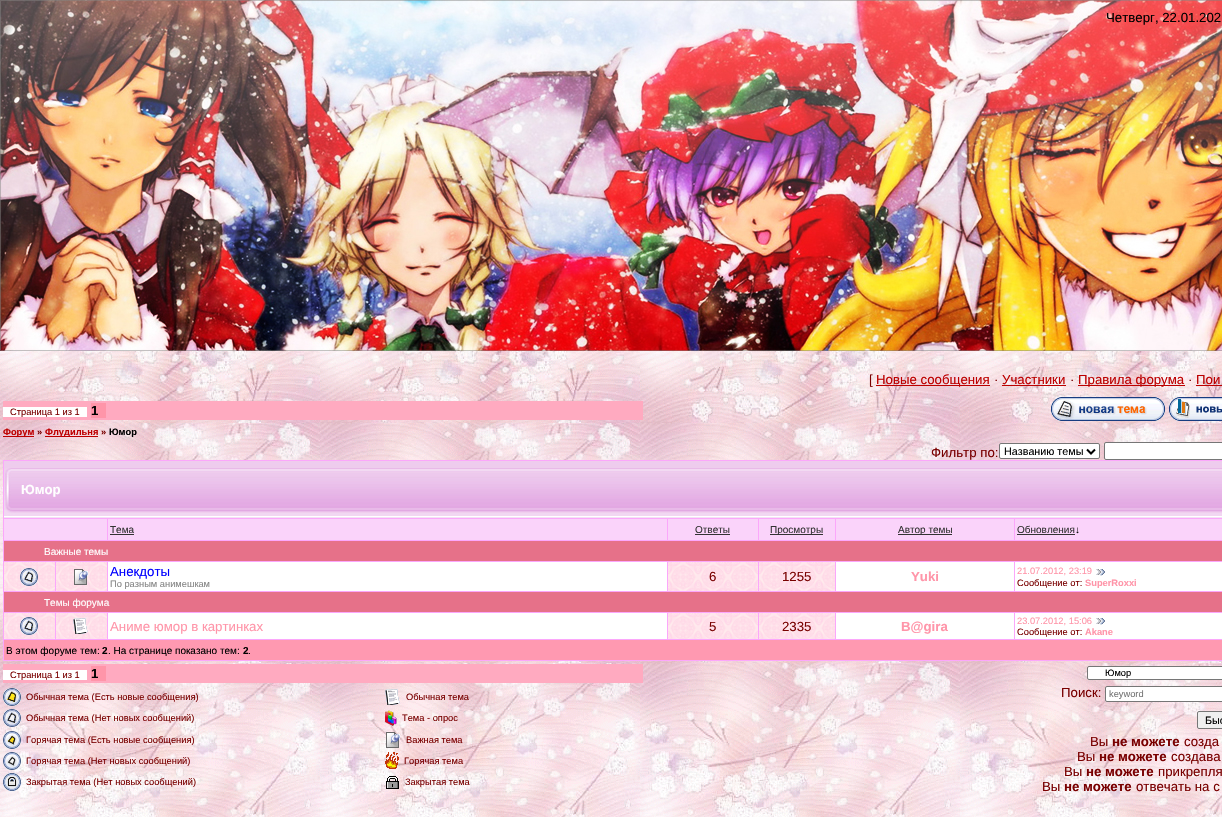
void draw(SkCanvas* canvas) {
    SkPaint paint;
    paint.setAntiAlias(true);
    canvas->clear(0xFFFFFFFF);
    canvas->drawImageRect(SkImages::DeferredFromEncodedData(SkData::MakeFromFileName("img1.png")), SkRect::MakeXYWH(0, 351, 1222, 466), SkSamplingOptions());
    canvas->drawImageRect(SkImages::DeferredFromEncodedData(SkData::MakeFromFileName("img2.png")), SkRect::MakeXYWH(0, 0, 1222, 351), SkSamplingOptions());
    SkFont font1(fontMgr->matchFamilyStyle("Liberation Sans", SkFontStyle::Normal()), 13.25f);
    font1.setSubpixel(true);
    paint.setColor(0xFF000000);
    canvas->drawString("Четверг, 22.01.202", 1106, 22, font1, paint);
    paint.setColor(0xFF790000);
    canvas->drawString("[", 869, 384, font1, paint);
    paint.setColor(0xFFBD0000);
    canvas->drawRect(SkRect::MakeXYWH(876, 385, 114, 1), paint);
    canvas->drawString("Новые сообщения", 876, 384, font1, paint);
    paint.setColor(0xFF790000);
    canvas->drawString("·", 994, 384, font1, paint);
    paint.setColor(0xFFBD0000);
    canvas->drawString("Участники", 1002, 384, font1, paint);
    canvas->drawRect(SkRect::MakeXYWH(1002, 385, 64, 1), paint);
    paint.setColor(0xFF790000);
    canvas->drawString("·", 1070, 384, font1, paint);
    paint.setColor(0xFFBD0000);
    canvas->drawRect(SkRect::MakeXYWH(1078, 385, 107, 1), paint);
    canvas->drawString("Правила форума", 1078, 384, font1, paint);
    paint.setColor(0xFF790000);
    canvas->drawString("·", 1188, 384, font1, paint);
    paint.setColor(0xFFBD0000);
    canvas->drawString("Пои", 1196, 384, font1, paint);
    canvas->drawRect(SkRect::MakeXYWH(1196, 385, 26, 1), paint);
    paint.setColor(0xFFFFAAC0);
    canvas->drawRect(SkRect::MakeXYWH(3, 401, 640, 19), paint);
    paint.setColor(0xFFFFFFFF);
    canvas->drawRect(SkRect::MakeXYWH(3, 407, 84, 10), paint);
    SkFont font2(fontMgr->matchFamilyStyle("Liberation Sans", SkFontStyle::Normal()), 9.3f);
    font2.setSubpixel(true);
    paint.setColor(0xFF790000);
    canvas->drawString("Страница 1 из 1", 10, 415, font2, paint);
    paint.setColor(0xFFFF95A9);
    canvas->drawRect(SkRect::MakeXYWH(91, 403, 15, 15), paint);
    SkFont font3(fontMgr->matchFamilyStyle("Liberation Sans", SkFontStyle::Bold()), 13.25f);
    font3.setSubpixel(true);
    paint.setColor(0xFF000000);
    canvas->drawString("1", 91, 415, font3, paint);
    canvas->drawImageRect(SkImages::DeferredFromEncodedData(SkData::MakeFromFileName("img3.png")), SkRect::MakeXYWH(1051, 397, 114, 24), SkSamplingOptions());
    canvas->drawImageRect(SkImages::DeferredFromEncodedData(SkData::MakeFromFileName("img4.png")), SkRect::MakeXYWH(1169, 397, 53, 24), SkSamplingOptions());
    paint.setColor(0xFFBD0000);
    canvas->drawRect(SkRect::MakeXYWH(3, 436, 31, 1), paint);
    SkFont font4(fontMgr->matchFamilyStyle("Liberation Sans", SkFontStyle::Bold()), 9.3f);
    font4.setSubpixel(true);
    canvas->drawString("Форум", 3, 435, font4, paint);
    paint.setColor(0xFF790000);
    canvas->drawString("»", 37, 435, font4, paint);
    paint.setColor(0xFFBD0000);
    canvas->drawRect(SkRect::MakeXYWH(45, 436, 53, 1), paint);
    canvas->drawString("Флудильня", 45, 435, font4, paint);
    paint.setColor(0xFF790000);
    canvas->drawString("»", 101, 435, font4, paint);
    paint.setColor(0xFF000000);
    canvas->drawString("Юмор", 109, 435, font4, paint);
    paint.setColor(0xFF790000);
    canvas->drawString("Фильтр по:", 931, 457, font1, paint);
    paint.setColor(0xFFFFFFFF);
    canvas->drawRoundRect(SkRect::MakeXYWH(999.5f, 443.5f, 100, 15), 1.5f, 1.5f, paint);
    paint.setStyle(SkPaint::kStroke_Style);
    paint.setStrokeWidth(1);
    paint.setColor(0xFF767676);
    canvas->drawRoundRect(SkRect::MakeXYWH(999.5f, 443.5f, 100, 15), 1.5f, 1.5f, paint);
    paint.setStrokeWidth(2);
    paint.setColor(0xFF000000);
    canvas->drawPath(SkPathBuilder().moveTo(1087, 449.5f).lineTo(1091, 453.5f).lineTo(1095, 449.5f).detach(), paint);
    SkFont font5(fontMgr->matchFamilyStyle("Liberation Sans", SkFontStyle::Normal()), 10.75f);
    font5.setSubpixel(true);
    paint.setStyle(SkPaint::kFill_Style);
    canvas->drawString("Названию темы", 1004, 455, font5, paint);
    paint.setColor(0xFFFFFFFF);
    canvas->drawRoundRect(SkRect::MakeXYWH(1104.5f, 442.5f, 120, 17), 1.5f, 1.5f, paint);
    paint.setStyle(SkPaint::kStroke_Style);
    paint.setStrokeWidth(1);
    paint.setColor(0xFF767676);
    canvas->drawRoundRect(SkRect::MakeXYWH(1104.5f, 442.5f, 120, 17), 1.5f, 1.5f, paint);
    paint.setStyle(SkPaint::kFill_Style);
    paint.setColor(0xFFFBA7FB);
    canvas->drawRect(SkRect::MakeXYWH(3, 460, 1219, 201), paint);
    canvas->drawImageRect(SkImages::DeferredFromEncodedData(SkData::MakeFromFileName("img5.png")), SkRect::MakeXYWH(4, 461, 1218, 57), SkSamplingOptions());
    paint.setColor(0xFFFFFFFF);
    canvas->drawString("Юмор", 21, 494, font3, paint);
    paint.setColor(0xFFFAD3FA);
    canvas->drawRect(SkRect::MakeXYWH(4, 519, 103, 21), paint);
    canvas->drawRect(SkRect::MakeXYWH(108, 519, 559, 21), paint);
    SkFont font6(fontMgr->matchFamilyStyle("Liberation Sans", SkFontStyle::Normal()), 10);
    font6.setSubpixel(true);
    paint.setColor(0xFF333333);
    canvas->drawString("Тема", 110, 533, font6, paint);
    canvas->drawRect(SkRect::MakeXYWH(110, 534, 24, 1), paint);
    paint.setColor(0xFFFAD3FA);
    canvas->drawRect(SkRect::MakeXYWH(668, 519, 90, 21), paint);
    paint.setColor(0xFF333333);
    canvas->drawString("Ответы", 695, 533, font6, paint);
    canvas->drawRect(SkRect::MakeXYWH(695, 534, 35, 1), paint);
    paint.setColor(0xFFFAD3FA);
    canvas->drawRect(SkRect::MakeXYWH(759, 519, 76, 21), paint);
    paint.setColor(0xFF333333);
    canvas->drawRect(SkRect::MakeXYWH(770, 534, 53, 1), paint);
    canvas->drawString("Просмотры", 770, 533, font6, paint);
    paint.setColor(0xFFFAD3FA);
    canvas->drawRect(SkRect::MakeXYWH(836, 519, 178, 21), paint);
    paint.setColor(0xFF333333);
    canvas->drawRect(SkRect::MakeXYWH(898, 534, 54, 1), paint);
    canvas->drawString("Автор темы", 898, 533, font6, paint);
    paint.setColor(0xFFFAD3FA);
    canvas->drawRect(SkRect::MakeXYWH(1015, 519, 207, 21), paint);
    paint.setColor(0xFF333333);
    canvas->drawString("Обновления", 1017, 533, font6, paint);
    canvas->drawRect(SkRect::MakeXYWH(1017, 534, 58, 1), paint);
    paint.setColor(0xFF000000);
    canvas->drawString("↓", 1075, 533, font6, paint);
    paint.setColor(0xFFE67189);
    canvas->drawRect(SkRect::MakeXYWH(4, 541, 1218, 20), paint);
    paint.setColor(0xFFFFFFFF);
    canvas->drawString("Важные темы", 44, 555, font6, paint);
    canvas->drawImageRect(SkImages::DeferredFromEncodedData(SkData::MakeFromFileName("img6.png")), SkRect::MakeXYWH(4, 562, 51, 29), SkSamplingOptions());
    canvas->drawImageRect(SkImages::DeferredFromEncodedData(SkData::MakeFromFileName("img7.png")), SkRect::MakeXYWH(20, 568, 18, 18), SkSamplingOptions());
    canvas->drawImageRect(SkImages::DeferredFromEncodedData(SkData::MakeFromFileName("img6.png")), SkRect::MakeXYWH(56, 562, 51, 29), SkSamplingOptions());
    canvas->drawImageRect(SkImages::DeferredFromEncodedData(SkData::MakeFromFileName("img8.png")), SkRect::MakeXYWH(74, 569, 14, 16), SkSamplingOptions());
    canvas->drawRect(SkRect::MakeXYWH(108, 562, 559, 29), paint);
    paint.setColor(0xFF0000FF);
    canvas->drawString("Анекдоты", 110, 576, font1, paint);
    paint.setColor(0xFF858585);
    canvas->drawString("По разным анимешкам", 110, 587, font2, paint);
    canvas->drawImageRect(SkImages::DeferredFromEncodedData(SkData::MakeFromFileName("img9.png")), SkRect::MakeXYWH(668, 562, 90, 29), SkSamplingOptions());
    paint.setColor(0xFF790000);
    canvas->drawString("6", 709, 581, font1, paint);
    canvas->drawImageRect(SkImages::DeferredFromEncodedData(SkData::MakeFromFileName("img10.png")), SkRect::MakeXYWH(759, 562, 76, 29), SkSamplingOptions());
    canvas->drawString("1255", 782, 581, font1, paint);
    paint.setColor(0xFFFFFFFF);
    canvas->drawRect(SkRect::MakeXYWH(836, 562, 178, 29), paint);
    paint.setColor(0xFFFF95A9);
    canvas->drawString("Yuki", 911, 581, font3, paint);
    paint.setColor(0xFFFFFFFF);
    canvas->drawRect(SkRect::MakeXYWH(1015, 562, 207, 29), paint);
    paint.setColor(0xFFFF95A9);
    canvas->drawString("21.07.2012, 23:19", 1017, 574, font2, paint);
    canvas->drawImageRect(SkImages::DeferredFromEncodedData(SkData::MakeFromFileName("img11.png")), SkRect::MakeXYWH(1096, 569, 9, 7), SkSamplingOptions());
    paint.setColor(0xFF790000);
    canvas->drawString("Сообщение от:", 1017, 586, font2, paint);
    paint.setColor(0xFFFF95A9);
    canvas->drawString("SuperRoxxi", 1085, 586, font4, paint);
    paint.setColor(0xFFE67189);
    canvas->drawRect(SkRect::MakeXYWH(4, 592, 1218, 20), paint);
    paint.setColor(0xFFFFFFFF);
    canvas->drawString("Темы форума", 44, 606, font6, paint);
    canvas->drawImageRect(SkImages::DeferredFromEncodedData(SkData::MakeFromFileName("img12.png")), SkRect::MakeXYWH(4, 613, 51, 26), SkSamplingOptions());
    canvas->drawImageRect(SkImages::DeferredFromEncodedData(SkData::MakeFromFileName("img13.png")), SkRect::MakeXYWH(20, 617, 18, 18), SkSamplingOptions());
    canvas->drawImageRect(SkImages::DeferredFromEncodedData(SkData::MakeFromFileName("img12.png")), SkRect::MakeXYWH(56, 613, 51, 26), SkSamplingOptions());
    canvas->drawImageRect(SkImages::DeferredFromEncodedData(SkData::MakeFromFileName("img14.png")), SkRect::MakeXYWH(73, 618, 15, 16), SkSamplingOptions());
    canvas->drawRect(SkRect::MakeXYWH(108, 613, 559, 26), paint);
    paint.setColor(0xFFFF95A9);
    canvas->drawString("Аниме юмор в картинках", 110, 631, font1, paint);
    canvas->drawImageRect(SkImages::DeferredFromEncodedData(SkData::MakeFromFileName("img15.png")), SkRect::MakeXYWH(668, 613, 90, 26), SkSamplingOptions());
    paint.setColor(0xFF790000);
    canvas->drawString("5", 709, 631, font1, paint);
    canvas->drawImageRect(SkImages::DeferredFromEncodedData(SkData::MakeFromFileName("img16.png")), SkRect::MakeXYWH(759, 613, 76, 26), SkSamplingOptions());
    canvas->drawString("2335", 782, 631, font1, paint);
    paint.setColor(0xFFFFFFFF);
    canvas->drawRect(SkRect::MakeXYWH(836, 613, 178, 26), paint);
    paint.setColor(0xFFFF95A9);
    canvas->drawString("B@girа", 901, 631, font3, paint);
    paint.setColor(0xFFFFFFFF);
    canvas->drawRect(SkRect::MakeXYWH(1015, 613, 207, 26), paint);
    paint.setColor(0xFFFF95A9);
    canvas->drawString("23.07.2012, 15:06", 1017, 624, font2, paint);
    canvas->drawImageRect(SkImages::DeferredFromEncodedData(SkData::MakeFromFileName("img11.png")), SkRect::MakeXYWH(1096, 618, 9, 7), SkSamplingOptions());
    paint.setColor(0xFF790000);
    canvas->drawString("Сообщение от:", 1017, 635, font2, paint);
    paint.setColor(0xFFFF95A9);
    canvas->drawString("Akane", 1085, 635, font4, paint);
    paint.setColor(0xFFFF99B1);
    canvas->drawRect(SkRect::MakeXYWH(4, 640, 1218, 20), paint);
    paint.setColor(0xFF000000);
    canvas->drawString("В этом форуме тем:", 6, 654, font6, paint);
    SkFont font7(fontMgr->matchFamilyStyle("Liberation Sans", SkFontStyle::Bold()), 10);
    font7.setSubpixel(true);
    canvas->drawString("2", 102, 654, font7, paint);
    canvas->drawString(". На странице показано тем:", 108, 654, font6, paint);
    canvas->drawString("2", 243, 654, font7, paint);
    canvas->drawString(".", 248, 654, font6, paint);
    paint.setColor(0xFFFFAAC0);
    canvas->drawRect(SkRect::MakeXYWH(3, 664, 640, 19), paint);
    paint.setColor(0xFFFFFFFF);
    canvas->drawRect(SkRect::MakeXYWH(3, 670, 84, 10), paint);
    paint.setColor(0xFF790000);
    canvas->drawString("Страница 1 из 1", 10, 678, font2, paint);
    paint.setColor(0xFFFF95A9);
    canvas->drawRect(SkRect::MakeXYWH(91, 666, 15, 15), paint);
    paint.setColor(0xFF000000);
    canvas->drawString("1", 91, 678, font3, paint);
    paint.setColor(0xFFFFFFFF);
    canvas->drawRoundRect(SkRect::MakeXYWH(1087.5f, 666.5f, 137, 13), 1.5f, 1.5f, paint);
    paint.setStyle(SkPaint::kStroke_Style);
    paint.setColor(0xFF767676);
    canvas->drawRoundRect(SkRect::MakeXYWH(1087.5f, 666.5f, 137, 13), 1.5f, 1.5f, paint);
    paint.setStyle(SkPaint::kFill_Style);
    paint.setColor(0xFF000000);
    canvas->drawString("Юмор", 1105, 676, font2, paint);
    canvas->drawImageRect(SkImages::DeferredFromEncodedData(SkData::MakeFromFileName("img17.png")), SkRect::MakeXYWH(3, 688, 18, 18), SkSamplingOptions());
    paint.setColor(0xFF790000);
    canvas->drawString("Обычная тема (Есть новые сообщения)", 26, 700, font2, paint);
    canvas->drawImageRect(SkImages::DeferredFromEncodedData(SkData::MakeFromFileName("img18.png")), SkRect::MakeXYWH(385, 689, 15, 16), SkSamplingOptions());
    canvas->drawString("Обычная тема", 406, 700, font2, paint);
    canvas->drawImageRect(SkImages::DeferredFromEncodedData(SkData::MakeFromFileName("img19.png")), SkRect::MakeXYWH(3, 709, 18, 18), SkSamplingOptions());
    canvas->drawString("Обычная тема (Нет новых сообщений)", 26, 721, font2, paint);
    canvas->drawImageRect(SkImages::DeferredFromEncodedData(SkData::MakeFromFileName("img20.png")), SkRect::MakeXYWH(385, 710, 12, 16), SkSamplingOptions());
    canvas->drawString("Тема - опрос", 402, 721, font2, paint);
    canvas->drawImageRect(SkImages::DeferredFromEncodedData(SkData::MakeFromFileName("img21.png")), SkRect::MakeXYWH(3, 731, 18, 18), SkSamplingOptions());
    canvas->drawString("Горячая тема (Есть новые сообщения)", 26, 743, font2, paint);
    canvas->drawImageRect(SkImages::DeferredFromEncodedData(SkData::MakeFromFileName("img22.png")), SkRect::MakeXYWH(386, 732, 14, 16), SkSamplingOptions());
    canvas->drawString("Важная тема", 406, 743, font2, paint);
    canvas->drawImageRect(SkImages::DeferredFromEncodedData(SkData::MakeFromFileName("img23.png")), SkRect::MakeXYWH(3, 752, 18, 18), SkSamplingOptions());
    canvas->drawString("Горячая тема (Нет новых сообщений)", 26, 764, font2, paint);
    canvas->drawImageRect(SkImages::DeferredFromEncodedData(SkData::MakeFromFileName("img24.png")), SkRect::MakeXYWH(385, 752, 14, 17), SkSamplingOptions());
    canvas->drawString("Горячая тема", 404, 764, font2, paint);
    canvas->drawImageRect(SkImages::DeferredFromEncodedData(SkData::MakeFromFileName("img25.png")), SkRect::MakeXYWH(3, 773, 18, 18), SkSamplingOptions());
    canvas->drawString("Закрытая тема (Нет новых сообщений)", 26, 785, font2, paint);
    canvas->drawImageRect(SkImages::DeferredFromEncodedData(SkData::MakeFromFileName("img26.png")), SkRect::MakeXYWH(386, 776, 13, 13), SkSamplingOptions());
    canvas->drawString("Закрытая тема", 405, 785, font2, paint);
    canvas->drawString("Поиск:", 1061, 697, font1, paint);
    paint.setColor(0xFFFFFFFF);
    canvas->drawRoundRect(SkRect::MakeXYWH(1105.5f, 686.5f, 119, 15), 1.5f, 1.5f, paint);
    paint.setStyle(SkPaint::kStroke_Style);
    paint.setColor(0xFF767676);
    canvas->drawRoundRect(SkRect::MakeXYWH(1105.5f, 686.5f, 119, 15), 1.5f, 1.5f, paint);
    paint.setStyle(SkPaint::kFill_Style);
    paint.setColor(0xFF757575);
    canvas->drawString("keyword", 1109, 697, font2, paint);
    paint.setColor(0xFFEFEFEF);
    canvas->drawRoundRect(SkRect::MakeXYWH(1197.5f, 711.5f, 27, 17), 1.5f, 1.5f, paint);
    paint.setStyle(SkPaint::kStroke_Style);
    paint.setColor(0xFF767676);
    canvas->drawRoundRect(SkRect::MakeXYWH(1197.5f, 711.5f, 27, 17), 1.5f, 1.5f, paint);
    paint.setStyle(SkPaint::kFill_Style);
    paint.setColor(0xFF000000);
    canvas->drawString("Быс", 1205, 724, font5, paint);
    paint.setColor(0xFF790000);
    canvas->drawString("Вы", 1090, 746, font1, paint);
    canvas->drawString("не можете", 1112, 746, font3, paint);
    canvas->drawString("созда", 1184, 746, font1, paint);
    canvas->drawString("Вы", 1077, 761, font1, paint);
    canvas->drawString("не можете", 1099, 761, font3, paint);
    canvas->drawString("создава", 1171, 761, font1, paint);
    canvas->drawString("Вы", 1064, 776, font1, paint);
    canvas->drawString("не можете", 1086, 776, font3, paint);
    canvas->drawString("прикрепля", 1158, 776, font1, paint);
    canvas->drawString("Вы", 1042, 791, font1, paint);
    canvas->drawString("не можете", 1064, 791, font3, paint);
    canvas->drawString("отвечать на с", 1136, 791, font1, paint);
}
